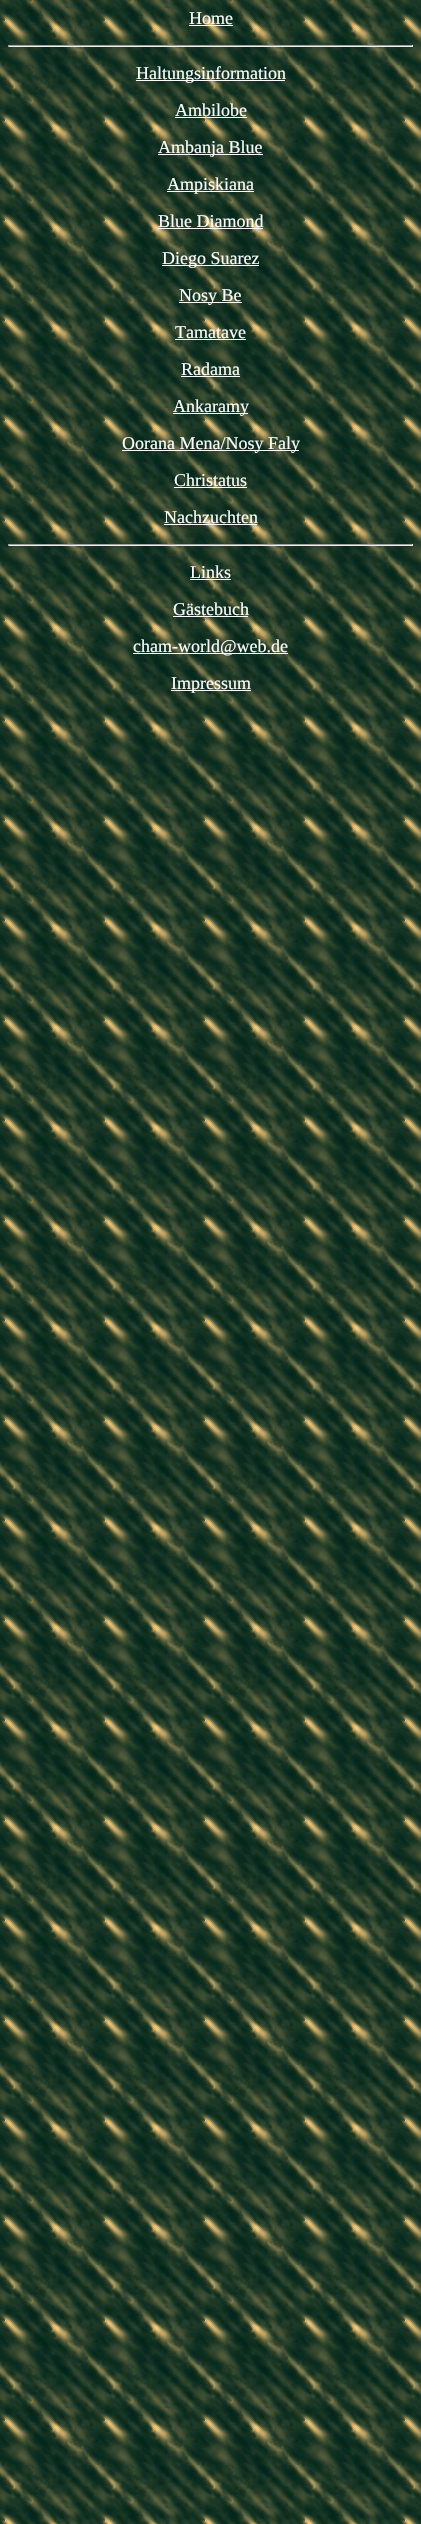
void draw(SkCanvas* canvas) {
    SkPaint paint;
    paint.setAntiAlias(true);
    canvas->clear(0xFFFFFFFF);
    canvas->drawImageRect(SkImages::DeferredFromEncodedData(SkData::MakeFromFileName("img1.png")), SkRect::MakeXYWH(0, 0, 421, 2524), SkSamplingOptions());
    SkFont font1(fontMgr->matchFamilyStyle("Liberation Serif", SkFontStyle::Normal()), 18);
    font1.setSubpixel(true);
    paint.setColor(0xFFFFFFFF);
    canvas->drawString("Home", 189, 24, font1, paint);
    canvas->drawRect(SkRect::MakeXYWH(189, 25, 44, 1), paint);
    paint.setColor(0xFF9F9F9F);
    canvas->drawRect(SkRect::MakeXYWH(8, 45, 405, 1), paint);
    paint.setColor(0xFFEEEEEE);
    canvas->drawRect(SkRect::MakeXYWH(412, 45, 1, 2), paint);
    canvas->drawRect(SkRect::MakeXYWH(8, 46, 405, 1), paint);
    paint.setColor(0xFF9F9F9F);
    canvas->drawRect(SkRect::MakeXYWH(8, 45, 1, 2), paint);
    paint.setColor(0xFFFFFFFF);
    canvas->drawRect(SkRect::MakeXYWH(136, 80, 149, 1), paint);
    canvas->drawString("Haltungsinformation", 136, 79, font1, paint);
    canvas->drawString("Ambilobe", 175, 116, font1, paint);
    canvas->drawRect(SkRect::MakeXYWH(175, 117, 72, 1), paint);
    canvas->drawRect(SkRect::MakeXYWH(158, 154, 105, 1), paint);
    canvas->drawString("Ambanja Blue", 158, 153, font1, paint);
    canvas->drawRect(SkRect::MakeXYWH(167, 191, 87, 1), paint);
    canvas->drawString("Ampiskiana", 167, 190, font1, paint);
    canvas->drawString("Blue Diamond", 158, 227, font1, paint);
    canvas->drawRect(SkRect::MakeXYWH(158, 228, 105, 1), paint);
    canvas->drawRect(SkRect::MakeXYWH(162, 265, 97, 1), paint);
    canvas->drawString("Diego Suarez", 162, 264, font1, paint);
    canvas->drawRect(SkRect::MakeXYWH(179, 302, 63, 1), paint);
    canvas->drawString("Nosy Be", 179, 301, font1, paint);
    canvas->drawString("Tamatave", 175, 338, font1, paint);
    canvas->drawRect(SkRect::MakeXYWH(175, 339, 71, 1), paint);
    canvas->drawString("Radama", 181, 375, font1, paint);
    canvas->drawRect(SkRect::MakeXYWH(181, 376, 59, 1), paint);
    canvas->drawRect(SkRect::MakeXYWH(173, 413, 75, 1), paint);
    canvas->drawString("Ankaramy", 173, 412, font1, paint);
    canvas->drawRect(SkRect::MakeXYWH(122, 450, 177, 1), paint);
    canvas->drawString("Oorana Mena/Nosy Faly", 122, 449, font1, paint);
    canvas->drawString("Christatus", 174, 486, font1, paint);
    canvas->drawRect(SkRect::MakeXYWH(174, 487, 73, 1), paint);
    canvas->drawString("Nachzuchten", 164, 523, font1, paint);
    canvas->drawRect(SkRect::MakeXYWH(164, 524, 93, 1), paint);
    paint.setColor(0xFF9F9F9F);
    canvas->drawRect(SkRect::MakeXYWH(8, 544, 405, 1), paint);
    paint.setColor(0xFFEEEEEE);
    canvas->drawRect(SkRect::MakeXYWH(412, 544, 1, 2), paint);
    canvas->drawRect(SkRect::MakeXYWH(8, 545, 405, 1), paint);
    paint.setColor(0xFF9F9F9F);
    canvas->drawRect(SkRect::MakeXYWH(8, 544, 1, 2), paint);
    paint.setColor(0xFFFFFFFF);
    canvas->drawString("Links", 190, 578, font1, paint);
    canvas->drawRect(SkRect::MakeXYWH(190, 579, 41, 1), paint);
    canvas->drawString("Gästebuch", 173, 615, font1, paint);
    canvas->drawRect(SkRect::MakeXYWH(173, 616, 75, 1), paint);
    canvas->drawRect(SkRect::MakeXYWH(133, 653, 155, 1), paint);
    canvas->drawString("cham-world@web.de", 133, 652, font1, paint);
    canvas->drawRect(SkRect::MakeXYWH(171, 690, 80, 1), paint);
    canvas->drawString("Impressum", 171, 689, font1, paint);
}
